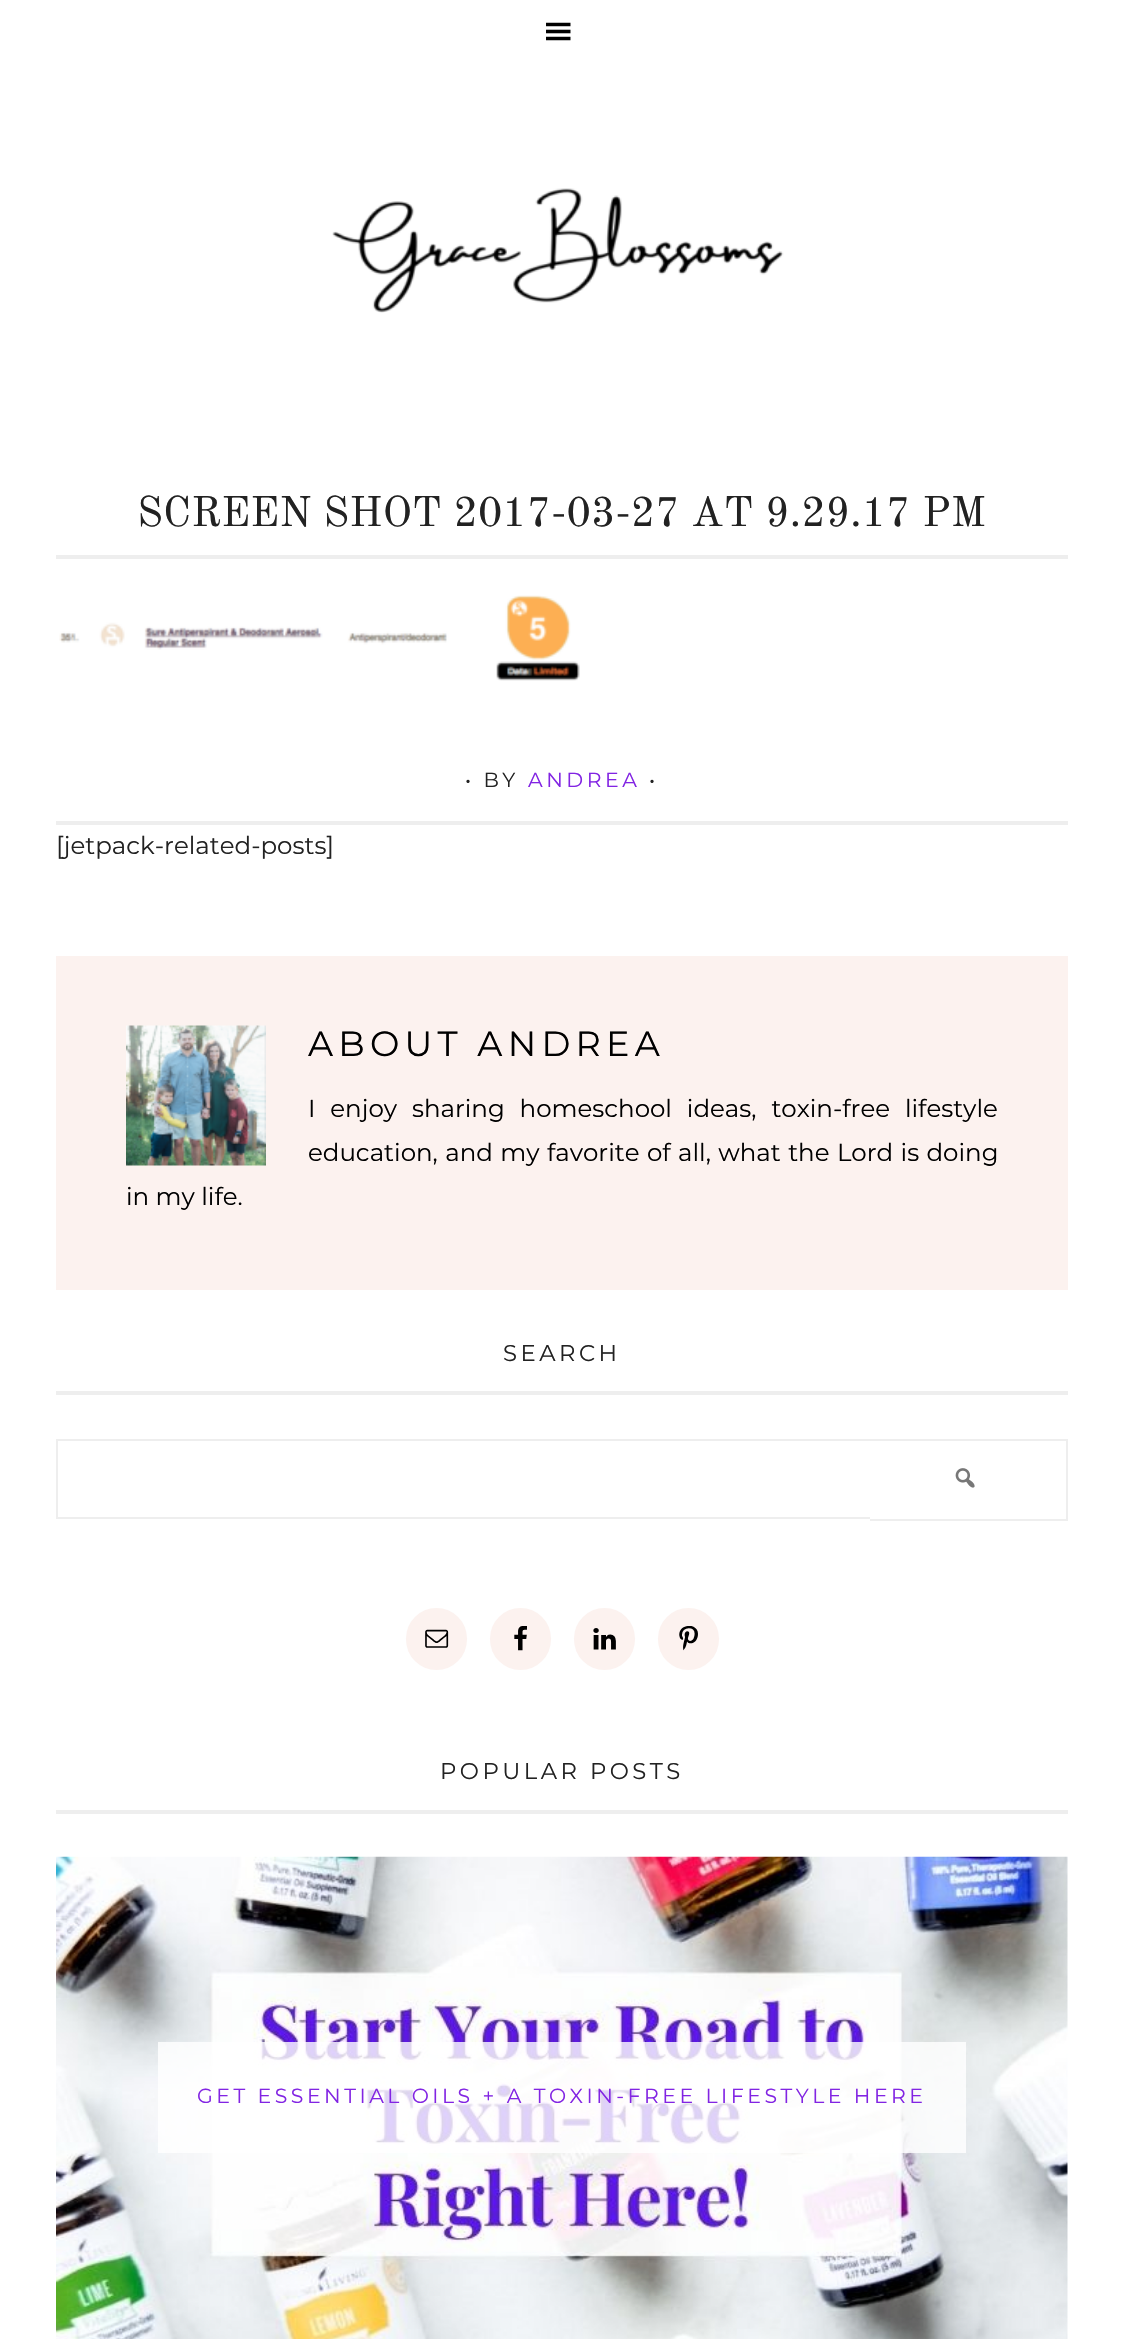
void draw(SkCanvas* canvas) {
    SkPaint paint;
    paint.setAntiAlias(true);
    auto spacedText = [&](const char* s, float x, float y, const SkFont& font, const SkPaint& ink, float letter, float word) {
        std::vector<SkGlyphID> glyphs(font.countText(s, strlen(s), SkTextEncoding::kUTF8));
        std::vector<float> xs(glyphs.size());
        font.textToGlyphs(s, strlen(s), SkTextEncoding::kUTF8, glyphs);
        font.getXPos(glyphs, xs, x);
        float extra = 0;
        for (size_t i = 0; i < glyphs.size(); i++) {
            xs[i] += extra;
            extra += letter + word * (glyphs[i] == font.unicharToGlyph(' '));
        }
        canvas->drawTextBlob(SkTextBlob::MakeFromPosHGlyphs(glyphs, xs, y, font), 0, 0, ink);
    };
    canvas->clear(0xFFFFFFFF);
    canvas->drawImageRect(SkImages::DeferredFromEncodedData(SkData::MakeFromFileName("img1.png")), SkRect::MakeXYWH(546, 22, 25, 19), SkSamplingOptions());
    canvas->drawImageRect(SkImages::DeferredFromEncodedData(SkData::MakeFromFileName("img2.png")), SkRect::MakeXYWH(332, 188, 452, 125), SkSamplingOptions());
    paint.setColor(0xFFEEEEEE);
    canvas->drawRect(SkRect::MakeXYWH(56, 555, 1012, 4), paint);
    SkFont font1(fontMgr->matchFamilyStyle("Old Standard TT", SkFontStyle::Normal()), 42);
    font1.setSubpixel(true);
    paint.setColor(0xFF222222);
    canvas->drawString("SCREEN SHOT 2017-03-27 AT 9.29.17 PM", 137, 526, font1, paint);
    canvas->drawImageRect(SkImages::DeferredFromEncodedData(SkData::MakeFromFileName("img3.png")), SkRect::MakeXYWH(59, 595, 521, 86), SkSamplingOptions());
    paint.setColor(0xFFEEEEEE);
    canvas->drawRect(SkRect::MakeXYWH(56, 821, 1012, 4), paint);
    SkFont font2(fontMgr->matchFamilyStyle("Montserrat", SkFontStyle(100, SkFontStyle::kNormal_Width, SkFontStyle::kUpright_Slant)), 20.45f);
    font2.setSubpixel(true);
    paint.setColor(0xFF222222);
    spacedText("• BY", 465, 787, font2, paint, 3.5f, 0);
    paint.setColor(0xFF8224E3);
    spacedText("ANDREA", 528, 787, font2, paint, 3.5f, 0);
    paint.setColor(0xFF222222);
    spacedText("•", 649, 787, font2, paint, 3.5f, 0);
    SkFont font3(fontMgr->matchFamilyStyle("Montserrat", SkFontStyle(100, SkFontStyle::kNormal_Width, SkFontStyle::kUpright_Slant)), 24.5f);
    font3.setSubpixel(true);
    canvas->drawString("[jetpack-related-posts]", 56, 854, font3, paint);
    paint.setColor(0xFFFCF2EF);
    canvas->drawRect(SkRect::MakeXYWH(56, 956, 1012, 334), paint);
    canvas->drawImageRect(SkImages::DeferredFromEncodedData(SkData::MakeFromFileName("img4.png")), SkRect::MakeXYWH(126, 1025, 140, 141), SkSamplingOptions());
    SkFont font4(fontMgr->matchFamilyStyle("Montserrat", SkFontStyle(100, SkFontStyle::kNormal_Width, SkFontStyle::kUpright_Slant)), 35);
    font4.setSubpixel(true);
    paint.setColor(0xFF000000);
    spacedText("ABOUT ANDREA", 308, 1056, font4, paint, 5.25f, 0);
    spacedText("I enjoy sharing homeschool ideas, toxin-free lifestyle", 308, 1117, font3, paint, 0, 8.5f);
    spacedText("education, and my favorite of all, what the Lord is doing", 308, 1161, font3, paint, 0, 1);
    canvas->drawString("in my life.", 126, 1205, font3, paint);
    paint.setColor(0xFFEEEEEE);
    canvas->drawRect(SkRect::MakeXYWH(56, 1391, 1012, 4), paint);
    SkFont font5(fontMgr->matchFamilyStyle("Montserrat", SkFontStyle(100, SkFontStyle::kNormal_Width, SkFontStyle::kUpright_Slant)), 22.75f);
    font5.setSubpixel(true);
    paint.setColor(0xFF222222);
    spacedText("SEARCH", 503, 1361, font5, paint, 3.5f, 0);
    paint.setColor(0xFFEEEEEE);
    canvas->drawRect(SkRect::MakeXYWH(56, 1439, 1012, 2), paint);
    canvas->drawRect(SkRect::MakeXYWH(56, 1517, 814, 2), paint);
    canvas->drawRect(SkRect::MakeXYWH(56, 1439, 2, 80), paint);
    canvas->drawRect(SkRect::MakeXYWH(1066, 1439, 2, 82), paint);
    canvas->drawRect(SkRect::MakeXYWH(870, 1519, 198, 2), paint);
    canvas->drawImageRect(SkImages::DeferredFromEncodedData(SkData::MakeFromFileName("img5.png")), SkRect::MakeXYWH(955, 1468, 20, 20), SkSamplingOptions());
    paint.setColor(0xFFFCF2EF);
    canvas->drawRoundRect(SkRect::MakeXYWH(406, 1608, 61, 62), 30.5f, 30.5f, paint);
    canvas->drawImageRect(SkImages::DeferredFromEncodedData(SkData::MakeFromFileName("img6.png")), SkRect::MakeXYWH(425, 1629, 24, 19), SkSamplingOptions());
    canvas->drawRoundRect(SkRect::MakeXYWH(490, 1608, 61, 62), 30.5f, 30.5f, paint);
    canvas->drawImageRect(SkImages::DeferredFromEncodedData(SkData::MakeFromFileName("img7.png")), SkRect::MakeXYWH(514, 1626, 13, 25), SkSamplingOptions());
    canvas->drawRoundRect(SkRect::MakeXYWH(574, 1608, 61, 62), 30.5f, 30.5f, paint);
    canvas->drawImageRect(SkImages::DeferredFromEncodedData(SkData::MakeFromFileName("img8.png")), SkRect::MakeXYWH(593, 1628, 23, 22), SkSamplingOptions());
    canvas->drawRoundRect(SkRect::MakeXYWH(658, 1608, 61, 62), 30.5f, 30.5f, paint);
    canvas->drawImageRect(SkImages::DeferredFromEncodedData(SkData::MakeFromFileName("img9.png")), SkRect::MakeXYWH(679, 1626, 19, 25), SkSamplingOptions());
    paint.setColor(0xFFEEEEEE);
    canvas->drawRect(SkRect::MakeXYWH(56, 1810, 1012, 4), paint);
    paint.setColor(0xFF222222);
    spacedText("POPULAR POSTS", 440, 1779, font5, paint, 3.5f, 0);
    canvas->drawImageRect(SkImages::DeferredFromEncodedData(SkData::MakeFromFileName("img10.png")), SkRect::MakeXYWH(56, 1856, 1012, 483), SkSamplingOptions());
    paint.setColor(0xCCFFFFFF);
    canvas->drawRect(SkRect::MakeXYWH(158, 2042, 808, 111), paint);
    paint.setColor(0xFF8224E3);
    spacedText("GET ESSENTIAL OILS + A TOXIN-FREE LIFESTYLE HERE", 197, 2103, font2, paint, 3.5f, 0);
}
